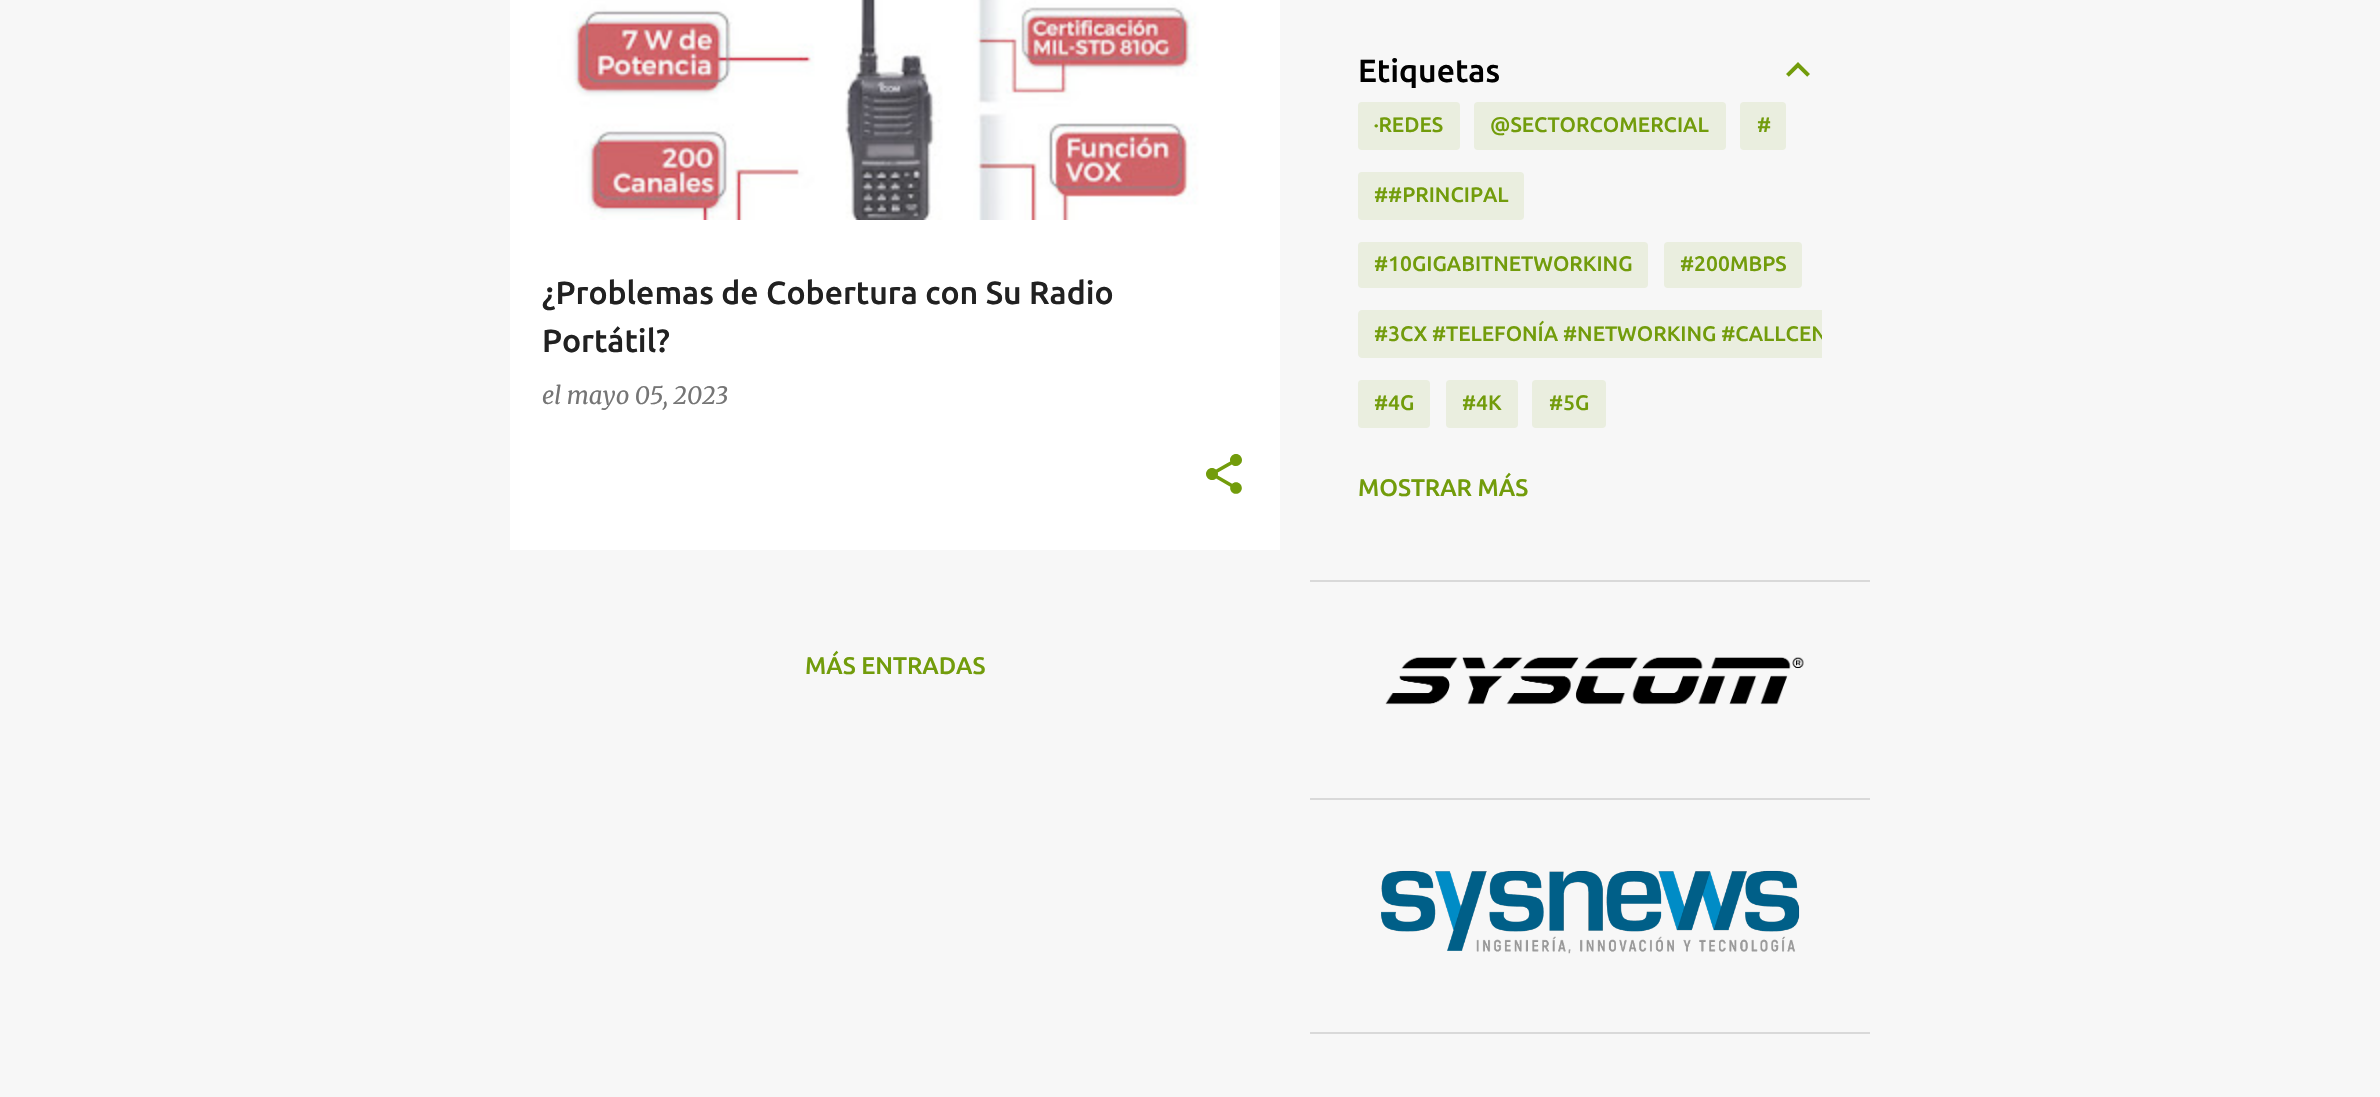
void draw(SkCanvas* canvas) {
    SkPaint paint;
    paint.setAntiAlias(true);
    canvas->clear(0xFFF7F7F7);
    paint.setColor(0xFFFFFFFF);
    canvas->drawRect(SkRect::MakeXYWH(510, 220, 770, 330), paint);
    canvas->drawImageRect(SkImages::DeferredFromEncodedData(SkData::MakeFromFileName("img1.png")), SkRect::MakeXYWH(510, 0, 770, 220), SkSamplingOptions());
    SkFont font1(fontMgr->matchFamilyStyle("Ubuntu", SkFontStyle(500, SkFontStyle::kNormal_Width, SkFontStyle::kUpright_Slant)), 32);
    font1.setSubpixel(true);
    paint.setColor(0xFF212121);
    canvas->drawString("¿Problemas de Cobertura con Su Radio", 542, 304, font1, paint);
    canvas->drawString("Portátil?", 542, 352, font1, paint);
    SkFont font2(fontMgr->matchFamilyStyle("Merriweather", SkFontStyle::Italic()), 24);
    font2.setSubpixel(true);
    paint.setColor(0xFF757575);
    canvas->drawString("el mayo 05, 2023", 542, 404, font2, paint);
    canvas->drawImageRect(SkImages::DeferredFromEncodedData(SkData::MakeFromFileName("img2.png")), SkRect::MakeXYWH(1206, 454, 36, 40), SkSamplingOptions());
    SkFont font3(fontMgr->matchFamilyStyle("Ubuntu", SkFontStyle(500, SkFontStyle::kNormal_Width, SkFontStyle::kUpright_Slant)), 24);
    font3.setSubpixel(true);
    paint.setColor(0xFF729C0B);
    canvas->drawString("MÁS ENTRADAS", 805, 674, font3, paint);
    paint.setColor(0xFF000000);
    canvas->drawString("Etiquetas", 1358, 82, font1, paint);
    canvas->drawImageRect(SkImages::DeferredFromEncodedData(SkData::MakeFromFileName("img3.png")), SkRect::MakeXYWH(1786, 62, 24, 15), SkSamplingOptions());
    paint.setColor(0xFFEAEEDF);
    canvas->drawRoundRect(SkRect::MakeXYWH(1358, 102, 102, 48), 4, 4, paint);
    SkFont font4(fontMgr->matchFamilyStyle("Ubuntu", SkFontStyle(500, SkFontStyle::kNormal_Width, SkFontStyle::kUpright_Slant)), 21);
    font4.setSubpixel(true);
    paint.setColor(0xFF729C0B);
    canvas->drawString("·REDES", 1374, 132, font4, paint);
    paint.setColor(0xFFEAEEDF);
    canvas->drawRoundRect(SkRect::MakeXYWH(1474, 102, 252, 48), 4, 4, paint);
    paint.setColor(0xFF729C0B);
    canvas->drawString("@SECTORCOMERCIAL", 1490, 132, font4, paint);
    paint.setColor(0xFFEAEEDF);
    canvas->drawRoundRect(SkRect::MakeXYWH(1740, 102, 46, 48), 4, 4, paint);
    paint.setColor(0xFF729C0B);
    canvas->drawString("#", 1757, 132, font4, paint);
    paint.setColor(0xFFEAEEDF);
    canvas->drawRoundRect(SkRect::MakeXYWH(1358, 172, 166, 48), 4, 4, paint);
    paint.setColor(0xFF729C0B);
    canvas->drawString("##PRINCIPAL", 1374, 202, font4, paint);
    paint.setColor(0xFFEAEEDF);
    canvas->drawRoundRect(SkRect::MakeXYWH(1358, 242, 290, 46), 4, 4, paint);
    paint.setColor(0xFF729C0B);
    canvas->drawString("#10GIGABITNETWORKING", 1374, 271, font4, paint);
    paint.setColor(0xFFEAEEDF);
    canvas->drawRoundRect(SkRect::MakeXYWH(1664, 242, 138, 46), 4, 4, paint);
    paint.setColor(0xFF729C0B);
    canvas->drawString("#200MBPS", 1680, 271, font4, paint);
    paint.setColor(0xFFEAEEDF);
    canvas->drawPath(SkPathBuilder().moveTo(1362, 310).lineTo(1822, 310).lineTo(1822, 358).lineTo(1362, 358).cubicTo(1360, 358, 1358, 356, 1358, 354).lineTo(1358, 314).cubicTo(1358, 312, 1360, 310, 1362, 310).close().detach(), paint);
    paint.setColor(0xFF729C0B);
    canvas->drawString("#3CX", 1374, 341, font4, paint);
    canvas->save();
    canvas->clipRect(SkRect::MakeXYWH(1358, 302, 464, 64));
    canvas->drawString("#TELEFONÍA #NETWORKING #CALLCEN", 1432, 341, font4, paint);
    canvas->restore();
    paint.setColor(0xFFEAEEDF);
    canvas->drawRoundRect(SkRect::MakeXYWH(1358, 380, 72, 48), 4, 4, paint);
    paint.setColor(0xFF729C0B);
    canvas->drawString("#4G", 1374, 410, font4, paint);
    paint.setColor(0xFFEAEEDF);
    canvas->drawRoundRect(SkRect::MakeXYWH(1446, 380, 72, 48), 4, 4, paint);
    paint.setColor(0xFF729C0B);
    canvas->drawString("#4K", 1462, 410, font4, paint);
    paint.setColor(0xFFEAEEDF);
    canvas->drawRoundRect(SkRect::MakeXYWH(1532, 380, 74, 48), 4, 4, paint);
    paint.setColor(0xFF729C0B);
    canvas->drawString("#5G", 1549, 410, font4, paint);
    canvas->drawString("MOSTRAR MÁS", 1358, 496, font3, paint);
    paint.setColor(0xFFD9D9D9);
    canvas->drawRect(SkRect::MakeXYWH(1310, 580, 560, 2), paint);
    canvas->drawImageRect(SkImages::DeferredFromEncodedData(SkData::MakeFromFileName("img4.png")), SkRect::MakeXYWH(1385, 657, 419, 48), SkSamplingOptions());
    canvas->drawRect(SkRect::MakeXYWH(1310, 798, 560, 2), paint);
    canvas->drawImageRect(SkImages::DeferredFromEncodedData(SkData::MakeFromFileName("img5.png")), SkRect::MakeXYWH(1381, 870, 419, 84), SkSamplingOptions());
    canvas->drawRect(SkRect::MakeXYWH(1310, 1032, 560, 2), paint);
}
